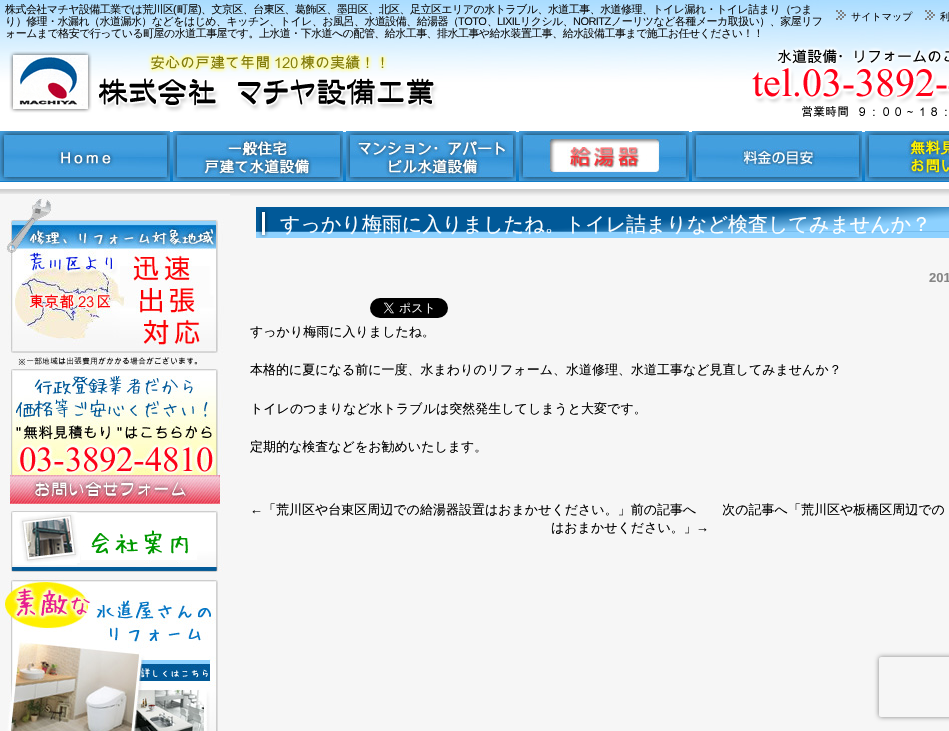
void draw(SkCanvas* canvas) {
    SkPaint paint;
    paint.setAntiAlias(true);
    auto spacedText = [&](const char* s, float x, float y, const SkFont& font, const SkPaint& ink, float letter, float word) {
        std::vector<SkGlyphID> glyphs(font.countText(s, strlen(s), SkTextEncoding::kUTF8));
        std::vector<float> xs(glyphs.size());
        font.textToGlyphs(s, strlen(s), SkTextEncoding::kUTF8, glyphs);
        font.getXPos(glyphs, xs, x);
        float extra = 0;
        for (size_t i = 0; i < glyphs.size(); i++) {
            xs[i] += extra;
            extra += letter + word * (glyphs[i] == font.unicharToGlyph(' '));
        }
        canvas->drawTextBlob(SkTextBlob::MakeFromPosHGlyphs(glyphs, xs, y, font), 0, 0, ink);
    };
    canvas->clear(0xFFF6F6F6);
    canvas->drawImageRect(SkImages::DeferredFromEncodedData(SkData::MakeFromFileName("img1.png")), SkRect::MakeXYWH(0, 0, 949, 196), SkSamplingOptions());
    SkFont font1(fontMgr->matchFamilyStyle("WenQuanYi Zen Hei", SkFontStyle(500, SkFontStyle::kNormal_Width, SkFontStyle::kUpright_Slant)), 11);
    font1.setSubpixel(true);
    paint.setColor(0xFF111111);
    spacedText("株式会社マチヤ設備工業では荒川区", 5, 13, font1, paint, -0.55f, 0);
    SkFont font2(fontMgr->matchFamilyStyle("Liberation Sans", SkFontStyle::Normal()), 11);
    font2.setSubpixel(true);
    spacedText("(", 173, 13, font2, paint, -0.55f, 0);
    spacedText("町屋", 177, 13, font1, paint, -0.55f, 0);
    spacedText(")", 198, 13, font2, paint, -0.55f, 0);
    spacedText("、文京区、台東区、葛飾区、墨田区、北区、足立区エリアの水トラブル、水道工事、水道修理、トイレ漏れ・トイレ詰まり（つま", 201, 13, font1, paint, -0.55f, 0);
    spacedText("り）修理・水漏れ（水道漏水）などをはじめ、キッチン、トイレ、お風呂、水道設備、給湯器（", 5, 25, font1, paint, -0.55f, 0);
    spacedText("TOTO", 458, 25, font2, paint, -0.55f, 0);
    spacedText("、", 487, 25, font1, paint, -0.55f, 0);
    spacedText("LIXIL", 497, 25, font2, paint, -0.55f, 0);
    spacedText("リクシル、", 520, 25, font1, paint, -0.55f, 0);
    spacedText("NORITZ", 573, 25, font2, paint, -0.55f, 0);
    spacedText("ノーリツなど各種メーカ取扱い）、家屋リフ", 611, 25, font1, paint, -0.55f, 0);
    spacedText("ォームまで格安で行っている町屋の水道工事屋です。上水道・下水道への配管、給水工事、排水工事や給水装置工事、給水設備工事まで施工お任せください！！", 5, 37, font1, paint, -0.55f, 0);
    canvas->drawImageRect(SkImages::DeferredFromEncodedData(SkData::MakeFromFileName("img2.png")), SkRect::MakeXYWH(836, 10, 10, 10), SkSamplingOptions());
    SkFont font3(fontMgr->matchFamilyStyle("WenQuanYi Zen Hei", SkFontStyle(500, SkFontStyle::kNormal_Width, SkFontStyle::kUpright_Slant)), 10);
    font3.setSubpixel(true);
    canvas->drawString("サイトマップ", 851, 20, font3, paint);
    canvas->drawImageRect(SkImages::DeferredFromEncodedData(SkData::MakeFromFileName("img3.png")), SkRect::MakeXYWH(925, 10, 10, 10), SkSamplingOptions());
    canvas->drawString("利", 940, 20, font3, paint);
    canvas->drawImageRect(SkImages::DeferredFromEncodedData(SkData::MakeFromFileName("img4.png")), SkRect::MakeXYWH(9, 46, 940, 71), SkSamplingOptions());
    canvas->drawImageRect(SkImages::DeferredFromEncodedData(SkData::MakeFromFileName("img5.png")), SkRect::MakeXYWH(0, 131, 170, 50), SkSamplingOptions());
    canvas->drawImageRect(SkImages::DeferredFromEncodedData(SkData::MakeFromFileName("img6.png")), SkRect::MakeXYWH(173, 131, 170, 50), SkSamplingOptions());
    canvas->drawImageRect(SkImages::DeferredFromEncodedData(SkData::MakeFromFileName("img7.png")), SkRect::MakeXYWH(346, 131, 170, 50), SkSamplingOptions());
    canvas->drawImageRect(SkImages::DeferredFromEncodedData(SkData::MakeFromFileName("img8.png")), SkRect::MakeXYWH(519, 131, 170, 50), SkSamplingOptions());
    canvas->drawImageRect(SkImages::DeferredFromEncodedData(SkData::MakeFromFileName("img9.png")), SkRect::MakeXYWH(692, 131, 170, 50), SkSamplingOptions());
    canvas->drawImageRect(SkImages::DeferredFromEncodedData(SkData::MakeFromFileName("img10.png")), SkRect::MakeXYWH(865, 131, 84, 50), SkSamplingOptions());
    canvas->drawImageRect(SkImages::DeferredFromEncodedData(SkData::MakeFromFileName("img11.png")), SkRect::MakeXYWH(0, 194, 230, 174), SkSamplingOptions());
    canvas->drawImageRect(SkImages::DeferredFromEncodedData(SkData::MakeFromFileName("img12.png")), SkRect::MakeXYWH(8, 369, 216, 135), SkSamplingOptions());
    canvas->drawImageRect(SkImages::DeferredFromEncodedData(SkData::MakeFromFileName("img13.png")), SkRect::MakeXYWH(9, 510, 215, 62), SkSamplingOptions());
    canvas->drawImageRect(SkImages::DeferredFromEncodedData(SkData::MakeFromFileName("img14.png")), SkRect::MakeXYWH(0, 576, 218, 155), SkSamplingOptions());
    canvas->drawImageRect(SkImages::DeferredFromEncodedData(SkData::MakeFromFileName("img15.png")), SkRect::MakeXYWH(256, 207, 693, 31), SkSamplingOptions());
    SkFont font4(fontMgr->matchFamilyStyle("WenQuanYi Zen Hei", SkFontStyle(500, SkFontStyle::kNormal_Width, SkFontStyle::kUpright_Slant)), 20);
    font4.setSubpixel(true);
    paint.setColor(0xFFFFFFFF);
    canvas->drawString("すっかり梅雨に入りましたね。トイレ詰まりなど検査してみませんか？", 280, 231, font4, paint);
    SkFont font5(fontMgr->matchFamilyStyle("Liberation Sans", SkFontStyle::Bold()), 13);
    font5.setSubpixel(true);
    paint.setColor(0xFF858585);
    canvas->drawString("201", 929, 282, font5, paint);
    canvas->drawImageRect(SkImages::DeferredFromEncodedData(SkData::MakeFromFileName("img16.png")), SkRect::MakeXYWH(370, 298, 78, 20), SkSamplingOptions());
    SkFont font6(fontMgr->matchFamilyStyle("WenQuanYi Zen Hei", SkFontStyle(500, SkFontStyle::kNormal_Width, SkFontStyle::kUpright_Slant)), 13);
    font6.setSubpixel(true);
    paint.setColor(0xFF000000);
    canvas->drawString("すっかり梅雨に入りましたね。", 250, 336, font6, paint);
    canvas->drawString("本格的に夏になる前に一度、水まわりのリフォーム、水道修理、水道工事など見直してみませんか？", 250, 374, font6, paint);
    canvas->drawString("トイレのつまりなど水トラブルは突然発生してしまうと大変です。", 250, 413, font6, paint);
    canvas->drawString("定期的な検査などをお勧めいたします。", 250, 451, font6, paint);
    SkFont font7(fontMgr->matchFamilyStyle("Liberation Sans", SkFontStyle::Normal()), 13);
    font7.setSubpixel(true);
    canvas->drawString("←", 250, 514, font7, paint);
    canvas->drawString("「荒川区や台東区周辺での給湯器設置はおまかせください。」前の記事へ　　次の記事へ「荒川区や板橋区周辺での", 263, 514, font6, paint);
    canvas->drawString("はおまかせください。」", 551, 532, font6, paint);
    canvas->drawString("→", 696, 532, font7, paint);
    canvas->save();
    canvas->clipPath(SkPathBuilder(SkPathFillType::kEvenOdd).moveTo(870, 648).lineTo(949, 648).lineTo(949, 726).lineTo(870, 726).close().moveTo(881, 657).lineTo(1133, 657).cubicTo(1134, 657, 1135, 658, 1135, 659).lineTo(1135, 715).cubicTo(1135, 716, 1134, 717, 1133, 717).lineTo(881, 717).cubicTo(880, 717, 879, 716, 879, 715).lineTo(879, 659).cubicTo(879, 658, 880, 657, 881, 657).close().detach(), true);
    paint.setColor(0xFF808080);
    paint.setMaskFilter(SkMaskFilter::MakeBlur(kNormal_SkBlurStyle, 2.5f));
    canvas->drawRoundRect(SkRect::MakeXYWH(879, 657, 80, 60), 2, 2, paint);
    paint.setMaskFilter(nullptr);
    canvas->restore();
}
